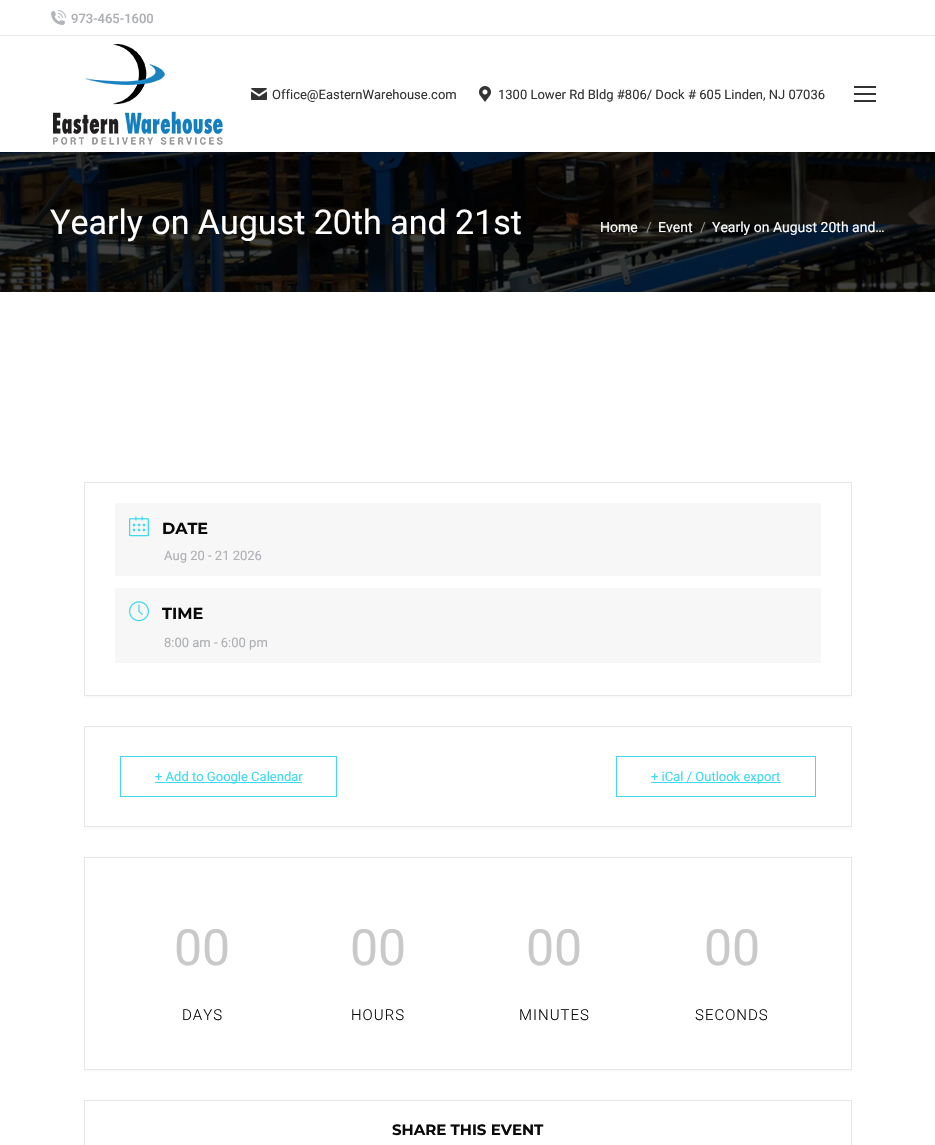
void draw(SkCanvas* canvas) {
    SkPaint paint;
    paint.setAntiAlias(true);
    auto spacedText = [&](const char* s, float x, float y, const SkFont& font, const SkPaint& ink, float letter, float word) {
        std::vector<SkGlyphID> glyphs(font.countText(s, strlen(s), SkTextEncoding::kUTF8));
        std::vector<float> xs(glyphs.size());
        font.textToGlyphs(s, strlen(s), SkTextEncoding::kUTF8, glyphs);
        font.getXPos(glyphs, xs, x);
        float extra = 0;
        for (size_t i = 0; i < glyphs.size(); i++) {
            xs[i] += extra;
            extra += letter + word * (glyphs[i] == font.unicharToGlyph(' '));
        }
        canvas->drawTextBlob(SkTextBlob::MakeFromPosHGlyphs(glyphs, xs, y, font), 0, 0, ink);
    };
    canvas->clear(0xFFFFFFFF);
    canvas->drawImageRect(SkImages::DeferredFromEncodedData(SkData::MakeFromFileName("img1.png")), SkRect::MakeXYWH(51, 10, 15, 15), SkSamplingOptions());
    SkFont font1(fontMgr->matchFamilyStyle("Roboto", SkFontStyle(500, SkFontStyle::kNormal_Width, SkFontStyle::kUpright_Slant)), 13);
    font1.setSubpixel(true);
    paint.setColor(0xFFADAFB3);
    canvas->drawString("973-465-1600", 71, 23, font1, paint);
    paint.setColor(0xFFE9E9E9);
    canvas->drawRect(SkRect::MakeXYWH(0, 35, 935, 1), paint);
    canvas->drawImageRect(SkImages::DeferredFromEncodedData(SkData::MakeFromFileName("img2.png")), SkRect::MakeXYWH(53, 44, 170, 101), SkSamplingOptions());
    canvas->drawImageRect(SkImages::DeferredFromEncodedData(SkData::MakeFromFileName("img3.png")), SkRect::MakeXYWH(251, 88, 16, 12), SkSamplingOptions());
    SkFont font2(fontMgr->matchFamilyStyle("Roboto", SkFontStyle::Normal()), 13);
    font2.setSubpixel(true);
    paint.setColor(0xFF333333);
    canvas->drawString("Office@EasternWarehouse.com", 272, 99, font2, paint);
    canvas->drawImageRect(SkImages::DeferredFromEncodedData(SkData::MakeFromFileName("img4.png")), SkRect::MakeXYWH(479, 86, 12, 16), SkSamplingOptions());
    canvas->drawString("1300 Lower Rd Bldg #806/ Dock # 605 Linden, NJ 07036", 498, 99, font2, paint);
    canvas->drawRect(SkRect::MakeXYWH(854, 86, 22, 2), paint);
    canvas->drawRect(SkRect::MakeXYWH(854, 93, 22, 2), paint);
    canvas->drawRect(SkRect::MakeXYWH(854, 100, 22, 2), paint);
    canvas->drawImageRect(SkImages::DeferredFromEncodedData(SkData::MakeFromFileName("img5.png")), SkRect::MakeXYWH(0, 152, 935, 140), SkSamplingOptions());
    SkFont font3(fontMgr->matchFamilyStyle("Roboto", SkFontStyle::Normal()), 34);
    font3.setSubpixel(true);
    paint.setColor(0xFFFFFFFF);
    canvas->drawString("Yearly on August 20th and 21st", 50, 234, font3, paint);
    SkFont font4(fontMgr->matchFamilyStyle("Roboto", SkFontStyle::Normal()), 14);
    font4.setSubpixel(true);
    canvas->drawString("Home", 600, 232, font4, paint);
    paint.setColor(0xFF908F8C);
    canvas->drawString("/", 646, 232, font4, paint);
    paint.setColor(0xFFFFFFFF);
    canvas->drawString("Event", 658, 232, font4, paint);
    paint.setColor(0xFF908F8C);
    canvas->drawString("/", 700, 232, font4, paint);
    paint.setColor(0xFFFFFFFF);
    canvas->drawString("Yearly on August 20th and…", 712, 232, font4, paint);
    paint.setColor(0xFFFBFBFB);
    canvas->drawRect(SkRect::MakeXYWH(84, 696, 768, 2), paint);
    paint.setStyle(SkPaint::kStroke_Style);
    paint.setStrokeWidth(1);
    paint.setColor(0xFFE6E6E6);
    canvas->drawRect(SkRect::MakeXYWH(84.5f, 482.5f, 767, 213), paint);
    paint.setStyle(SkPaint::kFill_Style);
    paint.setColor(0xFFF7F7F7);
    canvas->drawRect(SkRect::MakeXYWH(115, 503, 706, 73), paint);
    canvas->drawImageRect(SkImages::DeferredFromEncodedData(SkData::MakeFromFileName("img6.png")), SkRect::MakeXYWH(129, 516, 20, 21), SkSamplingOptions());
    SkFont font5(fontMgr->matchFamilyStyle("Montserrat", SkFontStyle::Bold()), 16);
    font5.setSubpixel(true);
    paint.setColor(0xFF0A0A0A);
    canvas->drawString("DATE", 162, 534, font5, paint);
    paint.setColor(0xFFADAFB3);
    canvas->drawString("Aug 20 - 21 2026", 164, 560, font2, paint);
    paint.setColor(0xFFF7F7F7);
    canvas->drawRect(SkRect::MakeXYWH(115, 588, 706, 75), paint);
    canvas->drawImageRect(SkImages::DeferredFromEncodedData(SkData::MakeFromFileName("img7.png")), SkRect::MakeXYWH(129, 601, 20, 21), SkSamplingOptions());
    paint.setColor(0xFF0A0A0A);
    canvas->drawString("TIME", 162, 619, font5, paint);
    paint.setColor(0xFFADAFB3);
    canvas->drawString("8:00 am - 6:00 pm", 164, 647, font2, paint);
    paint.setColor(0xFFFBFBFB);
    canvas->drawRect(SkRect::MakeXYWH(84, 827, 768, 2), paint);
    paint.setStyle(SkPaint::kStroke_Style);
    paint.setColor(0xFFE6E6E6);
    canvas->drawRect(SkRect::MakeXYWH(84.5f, 726.5f, 767, 100), paint);
    paint.setColor(0xFF40D9F1);
    canvas->drawRect(SkRect::MakeXYWH(120.5f, 756.5f, 216, 40), paint);
    paint.setStyle(SkPaint::kFill_Style);
    canvas->drawRect(SkRect::MakeXYWH(155, 782, 147, 1), paint);
    canvas->drawString("+ Add to Google Calendar", 155, 781, font2, paint);
    paint.setStyle(SkPaint::kStroke_Style);
    canvas->drawRect(SkRect::MakeXYWH(616.5f, 756.5f, 199, 40), paint);
    paint.setStyle(SkPaint::kFill_Style);
    canvas->drawRect(SkRect::MakeXYWH(651, 782, 130, 1), paint);
    canvas->drawString("+ iCal / Outlook export", 651, 781, font2, paint);
    paint.setColor(0xFFFBFBFB);
    canvas->drawRect(SkRect::MakeXYWH(84, 1070, 768, 2), paint);
    paint.setStyle(SkPaint::kStroke_Style);
    paint.setColor(0xFFE6E6E6);
    canvas->drawRect(SkRect::MakeXYWH(84.5f, 857.5f, 767, 212), paint);
    SkFont font6(fontMgr->matchFamilyStyle("Roboto", SkFontStyle::Normal()), 50);
    font6.setSubpixel(true);
    paint.setStyle(SkPaint::kFill_Style);
    paint.setColor(0xFFC9C9C9);
    canvas->drawString("00", 174, 965, font6, paint);
    SkFont font7(fontMgr->matchFamilyStyle("Roboto", SkFontStyle(300, SkFontStyle::kNormal_Width, SkFontStyle::kUpright_Slant)), 15);
    font7.setSubpixel(true);
    paint.setColor(0xFF0A0A0A);
    spacedText("DAYS", 182, 1020, font7, paint, 1, 0);
    paint.setColor(0xFFC9C9C9);
    canvas->drawString("00", 350, 965, font6, paint);
    paint.setColor(0xFF0A0A0A);
    spacedText("HOURS", 351, 1020, font7, paint, 1, 0);
    paint.setColor(0xFFC9C9C9);
    canvas->drawString("00", 526, 965, font6, paint);
    paint.setColor(0xFF0A0A0A);
    spacedText("MINUTES", 519, 1020, font7, paint, 1, 0);
    paint.setColor(0xFFC9C9C9);
    canvas->drawString("00", 704, 965, font6, paint);
    paint.setColor(0xFF0A0A0A);
    spacedText("SECONDS", 695, 1020, font7, paint, 1, 0);
    paint.setStyle(SkPaint::kStroke_Style);
    paint.setColor(0xFFE6E6E6);
    canvas->drawRect(SkRect::MakeXYWH(84.5f, 1100.5f, 767, 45), paint);
    SkFont font8(fontMgr->matchFamilyStyle("Montserrat", SkFontStyle::Bold()), 15);
    font8.setSubpixel(true);
    paint.setStyle(SkPaint::kFill_Style);
    paint.setColor(0xFF0A0A0A);
    canvas->drawString("SHARE THIS EVENT", 392, 1135, font8, paint);
}
